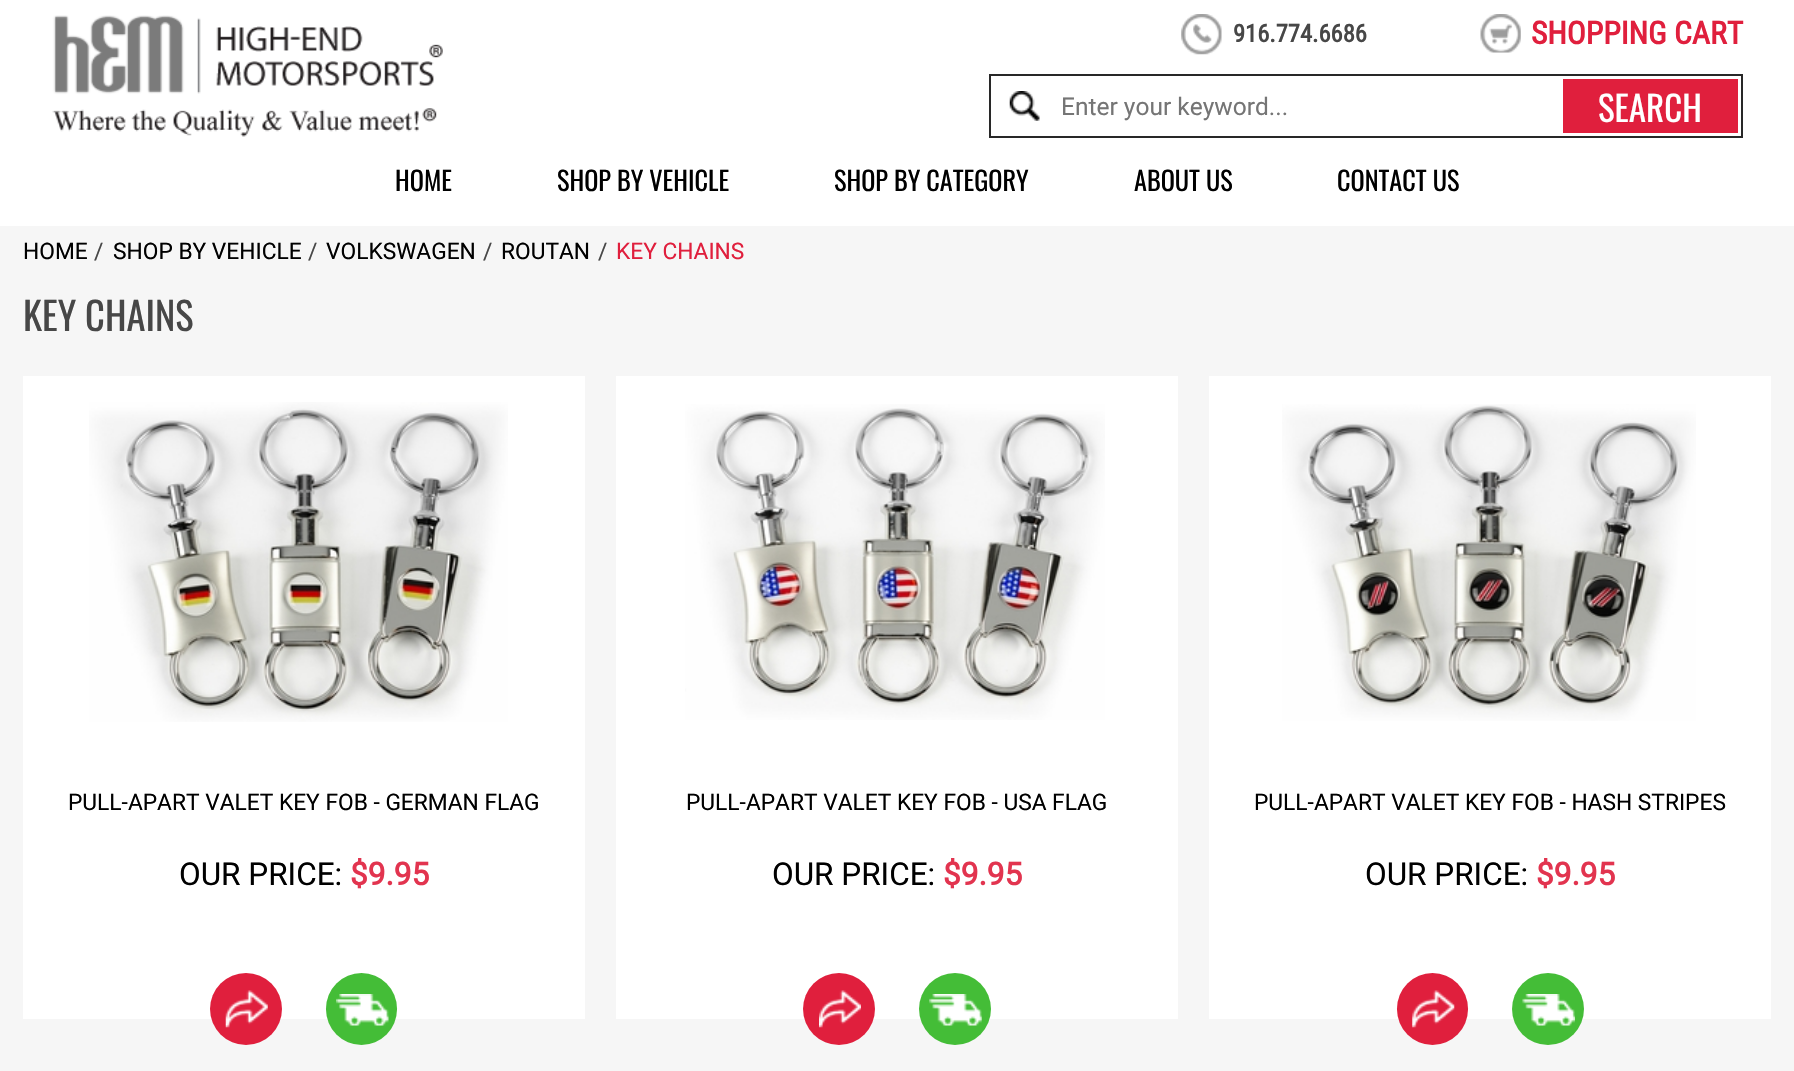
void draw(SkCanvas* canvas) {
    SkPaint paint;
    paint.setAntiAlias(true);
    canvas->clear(0xFFF6F6F6);
    paint.setColor(0xFFFFFFFF);
    canvas->drawRect(SkRect::MakeXYWH(0, 0, 1794, 226), paint);
    canvas->drawImageRect(SkImages::DeferredFromEncodedData(SkData::MakeFromFileName("img1.png")), SkRect::MakeXYWH(52, 15, 391, 122), SkSamplingOptions());
    canvas->drawImageRect(SkImages::DeferredFromEncodedData(SkData::MakeFromFileName("img2.png")), SkRect::MakeXYWH(1181, 14, 41, 41), SkSamplingOptions());
    SkFont font1(fontMgr->matchFamilyStyle("Roboto Condensed", SkFontStyle::Bold()), 24.5f);
    font1.setSubpixel(true);
    paint.setColor(0xFF474747);
    canvas->drawString("916.774.6686", 1233, 42, font1, paint);
    canvas->drawImageRect(SkImages::DeferredFromEncodedData(SkData::MakeFromFileName("img3.png")), SkRect::MakeXYWH(1480, 14, 41, 39), SkSamplingOptions());
    SkFont font2(fontMgr->matchFamilyStyle("Roboto Condensed", SkFontStyle::Bold()), 31.5f);
    font2.setSubpixel(true);
    paint.setColor(0xFFE01F3D);
    canvas->drawString("SHOPPING CART", 1531, 44, font2, paint);
    paint.setStyle(SkPaint::kStroke_Style);
    paint.setStrokeWidth(2);
    paint.setColor(0xFF282828);
    canvas->drawRect(SkRect::MakeXYWH(990, 75, 752, 62), paint);
    canvas->drawImageRect(SkImages::DeferredFromEncodedData(SkData::MakeFromFileName("img4.png")), SkRect::MakeXYWH(1009, 91, 31, 30), SkSamplingOptions());
    SkFont font3(fontMgr->matchFamilyStyle("Roboto", SkFontStyle::Normal()), 24.5f);
    font3.setSubpixel(true);
    paint.setStyle(SkPaint::kFill_Style);
    paint.setColor(0xFF757575);
    canvas->drawString("Enter your keyword...", 1061, 115, font3, paint);
    paint.setColor(0xFFE01F3D);
    canvas->drawRect(SkRect::MakeXYWH(1563, 79, 175, 54), paint);
    SkFont font4(fontMgr->matchFamilyStyle("Oswald", SkFontStyle::Normal()), 35);
    font4.setSubpixel(true);
    paint.setColor(0xFFFFFFFF);
    canvas->drawString("SEARCH", 1598, 122, font4, paint);
    SkFont font5(fontMgr->matchFamilyStyle("Oswald", SkFontStyle::Normal()), 26.25f);
    font5.setSubpixel(true);
    paint.setColor(0xFF000000);
    canvas->drawString("HOME", 395, 191, font5, paint);
    canvas->drawString("SHOP BY VEHICLE", 557, 191, font5, paint);
    canvas->drawString("SHOP BY CATEGORY", 834, 191, font5, paint);
    canvas->drawString("ABOUT US", 1134, 191, font5, paint);
    canvas->drawString("CONTACT US", 1337, 191, font5, paint);
    SkFont font6(fontMgr->matchFamilyStyle("Roboto", SkFontStyle::Normal()), 22.75f);
    font6.setSubpixel(true);
    canvas->drawString("HOME", 23, 259, font6, paint);
    paint.setColor(0xFF474747);
    canvas->drawString("/", 94, 259, font6, paint);
    paint.setColor(0xFF000000);
    canvas->drawString("SHOP BY VEHICLE", 113, 259, font6, paint);
    paint.setColor(0xFF474747);
    canvas->drawString("/", 308, 259, font6, paint);
    paint.setColor(0xFF000000);
    canvas->drawString("VOLKSWAGEN", 326, 259, font6, paint);
    paint.setColor(0xFF474747);
    canvas->drawString("/", 483, 259, font6, paint);
    paint.setColor(0xFF000000);
    canvas->drawString("ROUTAN", 501, 259, font6, paint);
    paint.setColor(0xFF474747);
    canvas->drawString("/", 598, 259, font6, paint);
    paint.setColor(0xFFE01F3D);
    canvas->drawString("KEY CHAINS", 616, 259, font6, paint);
    SkFont font7(fontMgr->matchFamilyStyle("Oswald", SkFontStyle::Normal()), 38.5f);
    font7.setSubpixel(true);
    paint.setColor(0xFF474747);
    canvas->drawString("KEY CHAINS", 23, 331, font7, paint);
    paint.setColor(0xFFFFFFFF);
    canvas->drawRect(SkRect::MakeXYWH(23, 376, 562, 643), paint);
    canvas->drawImageRect(SkImages::DeferredFromEncodedData(SkData::MakeFromFileName("img5.png")), SkRect::MakeXYWH(89, 402, 419, 320), SkSamplingOptions());
    paint.setColor(0xFF000000);
    canvas->drawString("PULL-APART VALET KEY FOB - GERMAN FLAG", 68, 810, font6, paint);
    SkFont font8(fontMgr->matchFamilyStyle("Roboto", SkFontStyle::Normal()), 31.5f);
    font8.setSubpixel(true);
    canvas->drawString("OUR PRICE:", 179, 885, font8, paint);
    SkFont font9(fontMgr->matchFamilyStyle("Roboto", SkFontStyle::Bold()), 31.5f);
    font9.setSubpixel(true);
    paint.setColor(0xFFE2344F);
    canvas->drawString("$9.95", 350, 885, font9, paint);
    paint.setColor(0xFFE01F3D);
    canvas->drawCircle(246, 1009, 36, paint);
    canvas->drawImageRect(SkImages::DeferredFromEncodedData(SkData::MakeFromFileName("img6.png")), SkRect::MakeXYWH(225, 990, 43, 38), SkSamplingOptions());
    paint.setColor(0xFF44BD37);
    canvas->drawRoundRect(SkRect::MakeXYWH(326, 973, 71, 72), 35.5f, 35.5f, paint);
    canvas->drawImageRect(SkImages::DeferredFromEncodedData(SkData::MakeFromFileName("img7.png")), SkRect::MakeXYWH(336, 994, 53, 32), SkSamplingOptions());
    paint.setColor(0xFFFFFFFF);
    canvas->drawRect(SkRect::MakeXYWH(616, 376, 562, 643), paint);
    canvas->drawImageRect(SkImages::DeferredFromEncodedData(SkData::MakeFromFileName("img8.png")), SkRect::MakeXYWH(685, 404, 420, 316), SkSamplingOptions());
    paint.setColor(0xFF000000);
    canvas->drawString("PULL-APART VALET KEY FOB - USA FLAG", 686, 810, font6, paint);
    canvas->drawString("OUR PRICE:", 772, 885, font8, paint);
    paint.setColor(0xFFE2344F);
    canvas->drawString("$9.95", 943, 885, font9, paint);
    paint.setColor(0xFFE01F3D);
    canvas->drawCircle(839, 1009, 36, paint);
    canvas->drawImageRect(SkImages::DeferredFromEncodedData(SkData::MakeFromFileName("img9.png")), SkRect::MakeXYWH(819, 990, 42, 38), SkSamplingOptions());
    paint.setColor(0xFF44BD37);
    canvas->drawCircle(955, 1009, 36, paint);
    canvas->drawImageRect(SkImages::DeferredFromEncodedData(SkData::MakeFromFileName("img10.png")), SkRect::MakeXYWH(929, 994, 53, 32), SkSamplingOptions());
    paint.setColor(0xFFFFFFFF);
    canvas->drawRect(SkRect::MakeXYWH(1209, 376, 562, 643), paint);
    canvas->drawImageRect(SkImages::DeferredFromEncodedData(SkData::MakeFromFileName("img11.png")), SkRect::MakeXYWH(1282, 404, 414, 317), SkSamplingOptions());
    paint.setColor(0xFF000000);
    canvas->drawString("PULL-APART VALET KEY FOB - HASH STRIPES", 1254, 810, font6, paint);
    canvas->drawString("OUR PRICE:", 1365, 885, font8, paint);
    paint.setColor(0xFFE2344F);
    canvas->drawString("$9.95", 1536, 885, font9, paint);
    paint.setColor(0xFFE01F3D);
    canvas->drawRoundRect(SkRect::MakeXYWH(1397, 973, 71, 72), 35.5f, 35.5f, paint);
    canvas->drawImageRect(SkImages::DeferredFromEncodedData(SkData::MakeFromFileName("img12.png")), SkRect::MakeXYWH(1412, 990, 43, 38), SkSamplingOptions());
    paint.setColor(0xFF44BD37);
    canvas->drawCircle(1548, 1009, 36, paint);
    canvas->drawImageRect(SkImages::DeferredFromEncodedData(SkData::MakeFromFileName("img13.png")), SkRect::MakeXYWH(1522, 994, 53, 32), SkSamplingOptions());
}
